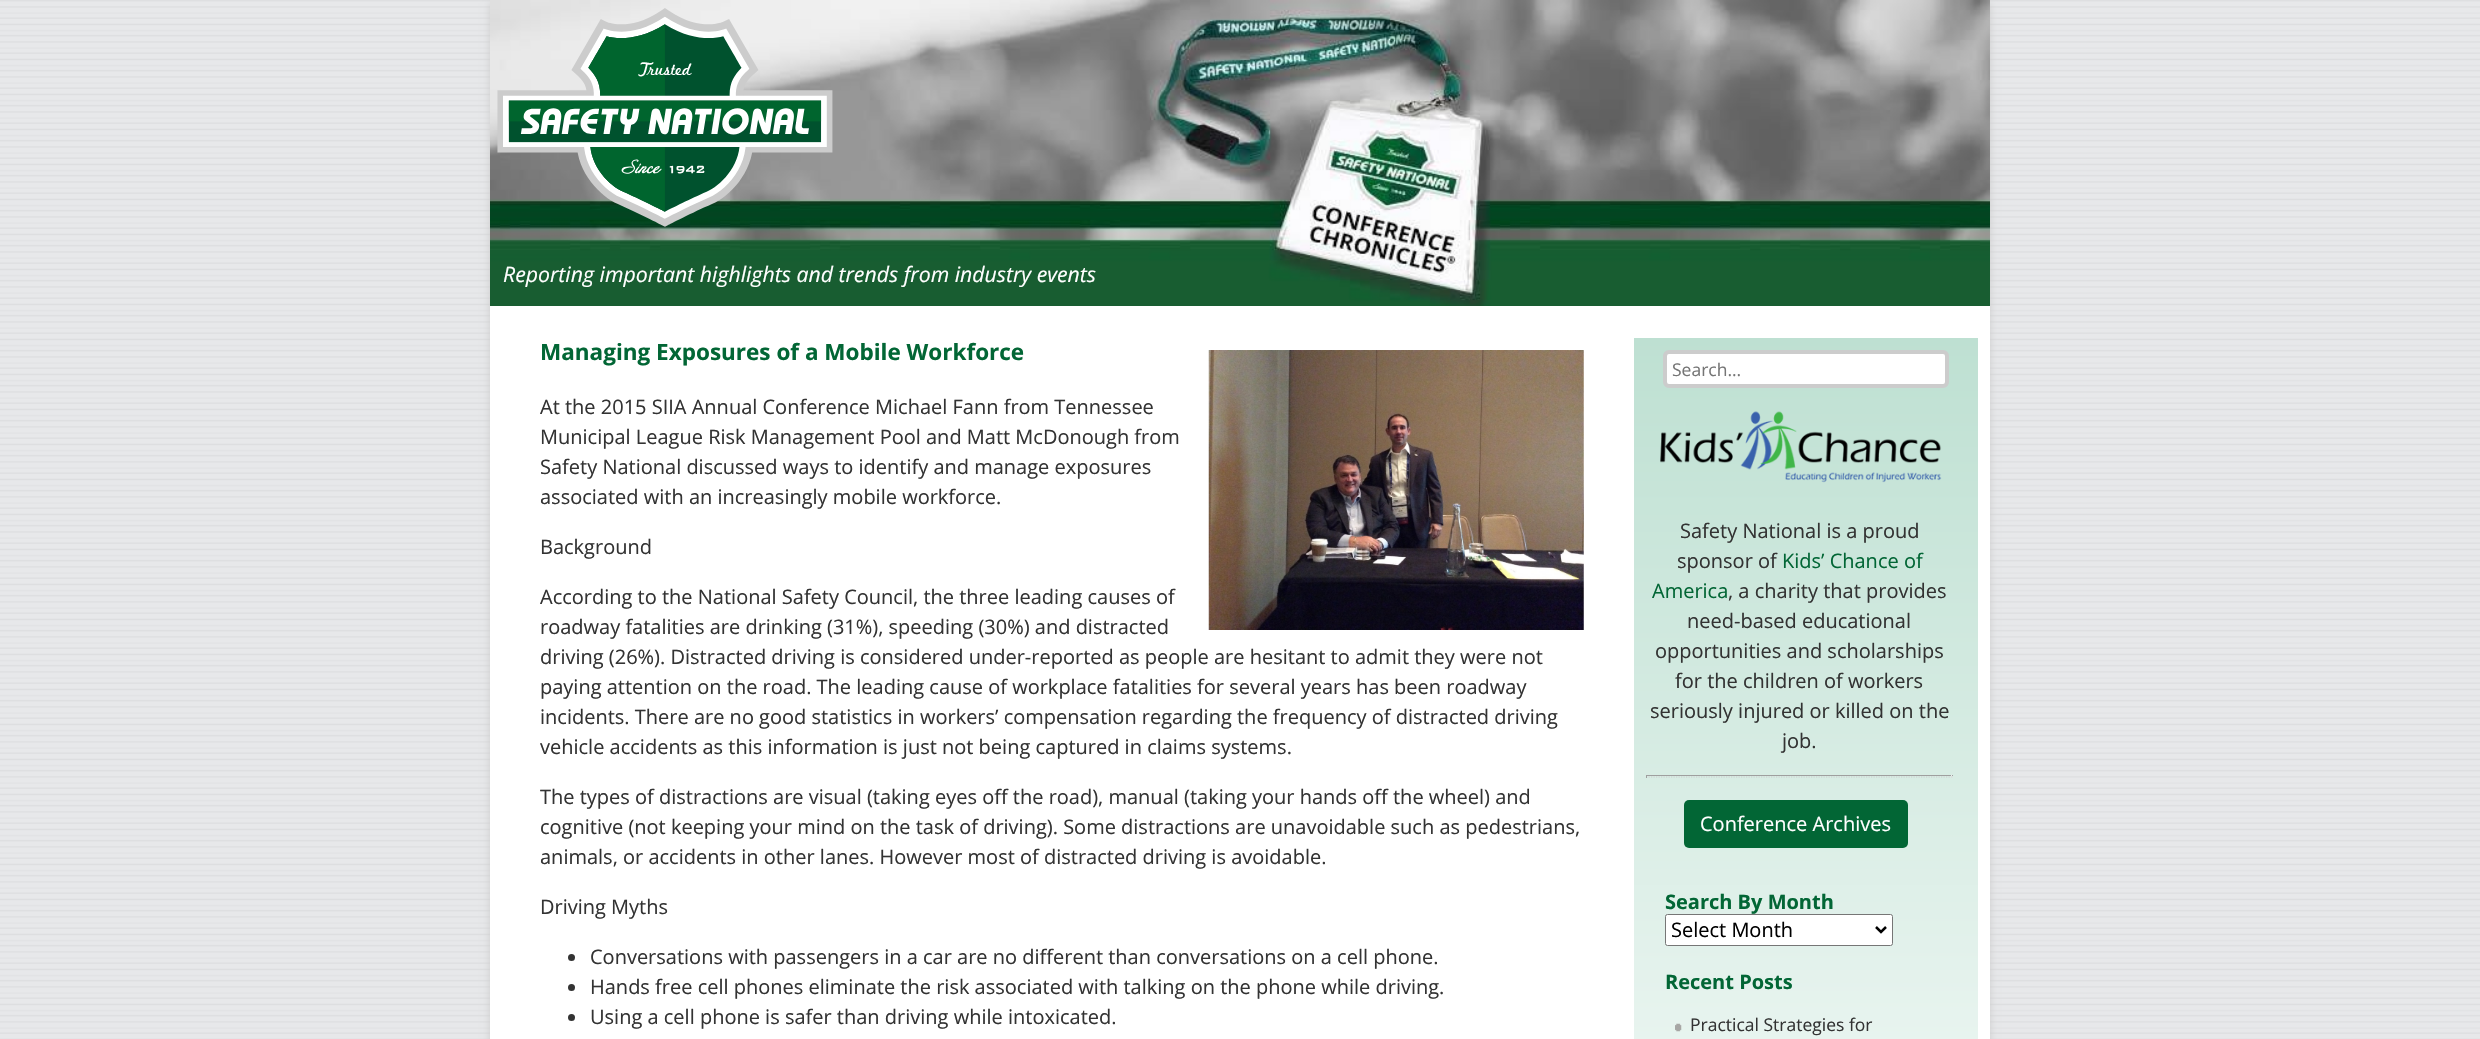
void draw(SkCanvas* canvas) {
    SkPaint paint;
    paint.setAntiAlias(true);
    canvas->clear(0xFFFFFFFF);
    canvas->drawImageRect(SkImages::DeferredFromEncodedData(SkData::MakeFromFileName("img1.png")), SkRect::MakeXYWH(0, 0, 2480, 1039), SkSamplingOptions());
    paint.setColor(0xFFCCCCCC);
    paint.setMaskFilter(SkMaskFilter::MakeBlur(kNormal_SkBlurStyle, 4));
    canvas->drawRect(SkRect::MakeXYWH(490, 3, 1500, 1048), paint);
    paint.setMaskFilter(nullptr);
    canvas->drawImageRect(SkImages::DeferredFromEncodedData(SkData::MakeFromFileName("img2.png")), SkRect::MakeXYWH(490, 0, 1500, 306), SkSamplingOptions());
    canvas->drawImageRect(SkImages::DeferredFromEncodedData(SkData::MakeFromFileName("img3.png")), SkRect::MakeXYWH(497, 8, 336, 219), SkSamplingOptions());
    SkFont font1(fontMgr->matchFamilyStyle("Open Sans", SkFontStyle::Italic()), 21.25f);
    font1.setSubpixel(true);
    paint.setColor(0xFFFFFFFF);
    canvas->drawString("Reporting important highlights and trends from industry events", 503, 282, font1, paint);
    canvas->drawRect(SkRect::MakeXYWH(490, 306, 1500, 733), paint);
    SkFont font2(fontMgr->matchFamilyStyle("Open Sans", SkFontStyle::Bold()), 22.5f);
    font2.setSubpixel(true);
    paint.setColor(0xFF026635);
    canvas->drawString("Managing Exposures of a Mobile Workforce", 540, 360, font2, paint);
    canvas->drawImageRect(SkImages::DeferredFromEncodedData(SkData::MakeFromFileName("img4.png")), SkRect::MakeXYWH(1208, 350, 376, 280), SkSamplingOptions());
    SkFont font3(fontMgr->matchFamilyStyle("Open Sans", SkFontStyle::Normal()), 20);
    font3.setSubpixel(true);
    paint.setColor(0xFF333333);
    canvas->drawString("At the 2015 SIIA Annual Conference Michael Fann from Tennessee", 540, 414, font3, paint);
    canvas->drawString("Municipal League Risk Management Pool and Matt McDonough from", 540, 444, font3, paint);
    canvas->drawString("Safety National discussed ways to identify and manage exposures", 540, 474, font3, paint);
    canvas->drawString("associated with an increasingly mobile workforce.", 540, 504, font3, paint);
    canvas->drawString("Background", 540, 554, font3, paint);
    canvas->drawString("According to the National Safety Council, the three leading causes of", 540, 604, font3, paint);
    canvas->drawString("roadway fatalities are drinking (31%), speeding (30%) and distracted", 540, 634, font3, paint);
    canvas->drawString("driving (26%). Distracted driving is considered under-reported as people are hesitant to admit they were not", 540, 664, font3, paint);
    canvas->drawString("paying attention on the road. The leading cause of workplace fatalities for several years has been roadway", 540, 694, font3, paint);
    canvas->drawString("incidents. There are no good statistics in workers’ compensation regarding the frequency of distracted driving", 540, 724, font3, paint);
    canvas->drawString("vehicle accidents as this information is just not being captured in claims systems.", 540, 754, font3, paint);
    canvas->drawString("The types of distractions are visual (taking eyes off the road), manual (taking your hands off the wheel) and", 540, 804, font3, paint);
    canvas->drawString("cognitive (not keeping your mind on the task of driving). Some distractions are unavoidable such as pedestrians,", 540, 834, font3, paint);
    canvas->drawString("animals, or accidents in other lanes. However most of distracted driving is avoidable.", 540, 864, font3, paint);
    canvas->drawString("Driving Myths", 540, 914, font3, paint);
    canvas->drawCircle(571.5f, 957.5f, 3.5f, paint);
    canvas->drawString("Conversations with passengers in a car are no different than conversations on a cell phone.", 590, 964, font3, paint);
    canvas->drawCircle(571.5f, 987.5f, 3.5f, paint);
    canvas->drawString("Hands free cell phones eliminate the risk associated with talking on the phone while driving.", 590, 994, font3, paint);
    canvas->drawCircle(571.5f, 1017.5f, 3.5f, paint);
    canvas->drawString("Using a cell phone is safer than driving while intoxicated.", 590, 1024, font3, paint);
    {
        const SkColor colors[] = {0xFFBEE0D2, 0xFFFFFFFF};
        const float stops[] = {0, 1};
        const SkPoint ends[] = {{1806, 338}, {1806, 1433}};
        paint.setShader(SkGradientShader::MakeLinear(ends, colors, stops, 2, SkTileMode::kClamp));
        paint.setAlpha(255);
    }
    canvas->drawRect(SkRect::MakeXYWH(1634, 338, 344, 701), paint);
    paint.setShader(nullptr);
    paint.setColor(0xFFFFFFFF);
    canvas->drawRoundRect(SkRect::MakeXYWH(1665, 352, 282, 34), 4, 4, paint);
    paint.setStyle(SkPaint::kStroke_Style);
    paint.setStrokeWidth(4);
    paint.setColor(0xFFCCCCCC);
    canvas->drawRoundRect(SkRect::MakeXYWH(1665, 352, 282, 34), 4, 4, paint);
    SkFont font4(fontMgr->matchFamilyStyle("Open Sans", SkFontStyle::Normal()), 17.5f);
    font4.setSubpixel(true);
    paint.setStyle(SkPaint::kFill_Style);
    paint.setColor(0xFF757575);
    canvas->drawString("Search...", 1672, 376, font4, paint);
    canvas->drawImageRect(SkImages::DeferredFromEncodedData(SkData::MakeFromFileName("img5.png")), SkRect::MakeXYWH(1660, 411, 282, 72), SkSamplingOptions());
    paint.setColor(0xFF333333);
    canvas->drawString("Safety National is a proud", 1680, 538, font3, paint);
    canvas->drawString("sponsor of", 1677, 568, font3, paint);
    paint.setColor(0xFF026635);
    canvas->drawString("Kids’ Chance of", 1782, 568, font3, paint);
    canvas->drawString("America", 1652, 598, font3, paint);
    paint.setColor(0xFF333333);
    canvas->drawString(", a charity that provides", 1728, 598, font3, paint);
    canvas->drawString("need-based educational", 1687, 628, font3, paint);
    canvas->drawString("opportunities and scholarships", 1655, 658, font3, paint);
    canvas->drawString("for the children of workers", 1675, 688, font3, paint);
    canvas->drawString("seriously injured or killed on the", 1650, 718, font3, paint);
    canvas->drawString("job.", 1782, 748, font3, paint);
    paint.setColor(0xFF9F9F9F);
    canvas->drawRect(SkRect::MakeXYWH(1646, 775, 307, 1), paint);
    paint.setColor(0xFFEEEEEE);
    canvas->drawRect(SkRect::MakeXYWH(1951, 775, 1, 3), paint);
    paint.setStyle(SkPaint::kStroke_Style);
    paint.setStrokeWidth(1.2f);
    paint.setColor(0xFFCCCCCC);
    paint.setPathEffect(SkDashPathEffect::Make({{1.25f, 1.25f}}, 0));
    canvas->drawPath(SkPathBuilder().moveTo(1646, 777).lineTo(1952.5f, 777).detach(), paint);
    paint.setPathEffect(nullptr);
    paint.setStyle(SkPaint::kFill_Style);
    paint.setColor(0xFF9F9F9F);
    canvas->drawRect(SkRect::MakeXYWH(1646, 775, 1, 3), paint);
    paint.setColor(0xFF026635);
    canvas->drawRoundRect(SkRect::MakeXYWH(1684, 800, 224, 48), 5, 5, paint);
    paint.setColor(0xFFFFFFFF);
    canvas->drawString("Conference Archives", 1700, 831, font3, paint);
    SkFont font5(fontMgr->matchFamilyStyle("Open Sans", SkFontStyle::Bold()), 20);
    font5.setSubpixel(true);
    paint.setColor(0xFF026635);
    canvas->drawString("Search By Month", 1665, 909, font5, paint);
    paint.setColor(0xFFFFFFFF);
    canvas->drawRoundRect(SkRect::MakeXYWH(1665.5f, 914.5f, 227, 31), 2, 2, paint);
    paint.setStyle(SkPaint::kStroke_Style);
    paint.setStrokeWidth(1);
    paint.setColor(0xFF767676);
    canvas->drawRoundRect(SkRect::MakeXYWH(1665.5f, 914.5f, 227, 31), 2, 2, paint);
    paint.setStrokeWidth(2.5f);
    paint.setColor(0xFF000000);
    canvas->drawPath(SkPathBuilder().moveTo(1876, 927).lineTo(1881, 932).lineTo(1886, 927).detach(), paint);
    paint.setStyle(SkPaint::kFill_Style);
    canvas->drawString("Select Month", 1671, 937, font3, paint);
    paint.setColor(0xFF026635);
    canvas->drawString("Recent Posts", 1665, 989, font5, paint);
    canvas->drawImageRect(SkImages::DeferredFromEncodedData(SkData::MakeFromFileName("img6.png")), SkRect::MakeXYWH(1675, 1023, 7, 9), SkSamplingOptions());
    paint.setColor(0xFF333333);
    canvas->drawString("Practical Strategies for", 1690, 1031, font4, paint);
}
